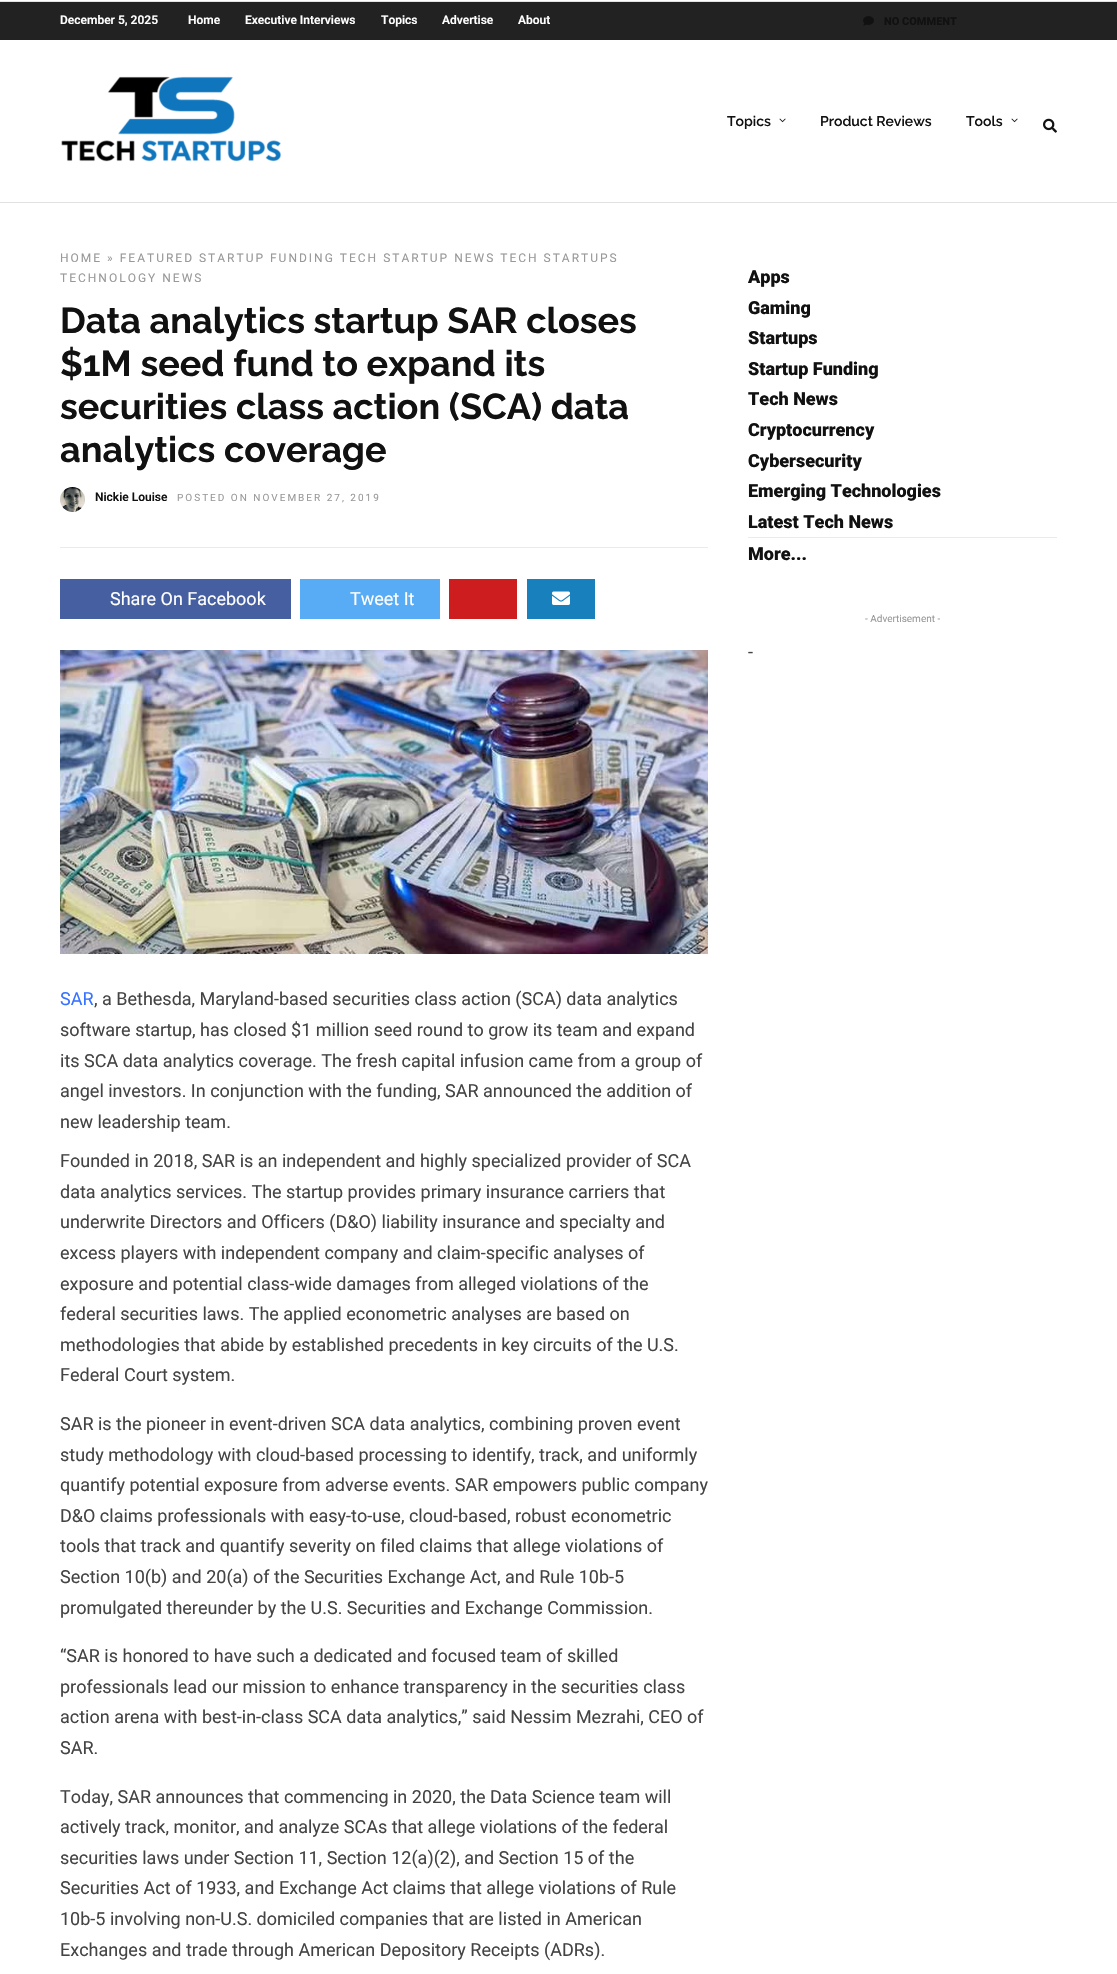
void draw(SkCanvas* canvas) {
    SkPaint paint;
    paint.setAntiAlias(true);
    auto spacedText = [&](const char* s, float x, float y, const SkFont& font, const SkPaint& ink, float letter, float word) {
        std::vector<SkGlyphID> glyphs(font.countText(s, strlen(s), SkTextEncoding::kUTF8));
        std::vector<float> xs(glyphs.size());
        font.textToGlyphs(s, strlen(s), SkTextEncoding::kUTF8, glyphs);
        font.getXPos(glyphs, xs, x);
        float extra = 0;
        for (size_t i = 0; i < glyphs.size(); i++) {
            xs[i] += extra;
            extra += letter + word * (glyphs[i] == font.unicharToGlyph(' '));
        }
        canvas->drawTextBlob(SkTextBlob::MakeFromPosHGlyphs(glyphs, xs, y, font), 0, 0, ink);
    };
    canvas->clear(0xFFFFFFFF);
    paint.setColor(0xFF222222);
    canvas->drawRect(SkRect::MakeXYWH(0, 2, 1117, 38), paint);
    SkFont font1(fontMgr->matchFamilyStyle("Roboto", SkFontStyle(600, SkFontStyle::kNormal_Width, SkFontStyle::kUpright_Slant)), 12);
    font1.setSubpixel(true);
    paint.setColor(0xFFFFFFFF);
    canvas->drawString("December 5, 2025", 60, 24, font1, paint);
    canvas->drawString("Home", 188, 24, font1, paint);
    canvas->drawString("Executive Interviews", 245, 24, font1, paint);
    canvas->drawString("Topics", 381, 24, font1, paint);
    canvas->drawString("Advertise", 442, 24, font1, paint);
    canvas->drawString("About", 518, 24, font1, paint);
    paint.setColor(0xFFE1E1E1);
    canvas->drawRect(SkRect::MakeXYWH(0, 202, 1117, 1), paint);
    canvas->drawImageRect(SkImages::DeferredFromEncodedData(SkData::MakeFromFileName("img1.png")), SkRect::MakeXYWH(61, 76, 220, 86), SkSamplingOptions());
    SkFont font2(fontMgr->matchFamilyStyle("Raleway", SkFontStyle(600, SkFontStyle::kNormal_Width, SkFontStyle::kUpright_Slant)), 14);
    font2.setSubpixel(true);
    paint.setColor(0xFF111111);
    canvas->drawString("Topics", 727, 126, font2, paint);
    canvas->drawImageRect(SkImages::DeferredFromEncodedData(SkData::MakeFromFileName("img2.png")), SkRect::MakeXYWH(779, 118, 7, 5), SkSamplingOptions());
    canvas->drawString("Product Reviews", 820, 126, font2, paint);
    canvas->drawString("Tools", 966, 126, font2, paint);
    canvas->drawImageRect(SkImages::DeferredFromEncodedData(SkData::MakeFromFileName("img2.png")), SkRect::MakeXYWH(1011, 118, 7, 5), SkSamplingOptions());
    canvas->drawImageRect(SkImages::DeferredFromEncodedData(SkData::MakeFromFileName("img3.png")), SkRect::MakeXYWH(1043, 118, 14, 15), SkSamplingOptions());
    SkFont font3(fontMgr->matchFamilyStyle("Roboto", SkFontStyle::Normal()), 12);
    font3.setSubpixel(true);
    paint.setColor(0xFF999999);
    spacedText("HOME » FEATURED STARTUP FUNDING TECH STARTUP NEWS TECH STARTUPS", 60, 262, font3, paint, 2, 0);
    spacedText("TECHNOLOGY NEWS", 60, 282, font3, paint, 2, 0);
    SkFont font4(fontMgr->matchFamilyStyle("Raleway", SkFontStyle::Bold()), 36);
    font4.setSubpixel(true);
    paint.setColor(0xFF111111);
    canvas->drawString("Data analytics startup SAR closes", 60, 333, font4, paint);
    canvas->drawString("$1M seed fund to expand its", 60, 376, font4, paint);
    canvas->drawString("securities class action (SCA) data", 60, 419, font4, paint);
    canvas->drawString("analytics coverage", 60, 462, font4, paint);
    canvas->drawImageRect(SkImages::DeferredFromEncodedData(SkData::MakeFromFileName("img4.png")), SkRect::MakeXYWH(60, 487, 25, 25), SkSamplingOptions());
    canvas->drawString("Nickie Louise", 95, 501, font1, paint);
    SkFont font5(fontMgr->matchFamilyStyle("Roboto", SkFontStyle::Normal()), 10);
    font5.setSubpixel(true);
    paint.setColor(0xFF999999);
    spacedText("POSTED ON NOVEMBER 27, 2019", 177, 501, font5, paint, 2, 0);
    paint.setColor(0xFFEBEBEB);
    canvas->drawRect(SkRect::MakeXYWH(60, 547, 648, 1), paint);
    paint.setColor(0xFF455FA1);
    canvas->drawRect(SkRect::MakeXYWH(60, 579, 231, 40), paint);
    SkFont font6(fontMgr->matchFamilyStyle("Roboto", SkFontStyle::Normal()), 18);
    font6.setSubpixel(true);
    paint.setColor(0xFFFFFFFF);
    canvas->drawString("Share On Facebook", 110, 605, font6, paint);
    paint.setColor(0xFF58ABF5);
    canvas->drawRect(SkRect::MakeXYWH(300, 579, 140, 40), paint);
    paint.setColor(0xFFFFFFFF);
    canvas->drawString("Tweet It", 350, 605, font6, paint);
    paint.setColor(0xFFCD1D1F);
    canvas->drawRect(SkRect::MakeXYWH(449, 579, 68, 40), paint);
    paint.setColor(0xFF1980BE);
    canvas->drawRect(SkRect::MakeXYWH(527, 579, 68, 40), paint);
    canvas->drawImageRect(SkImages::DeferredFromEncodedData(SkData::MakeFromFileName("img5.png")), SkRect::MakeXYWH(552, 591, 18, 14), SkSamplingOptions());
    canvas->drawImageRect(SkImages::DeferredFromEncodedData(SkData::MakeFromFileName("img6.png")), SkRect::MakeXYWH(60, 650, 648, 304), SkSamplingOptions());
    paint.setColor(0xFF3873FF);
    canvas->drawString("SAR", 60, 1005, font6, paint);
    paint.setColor(0xFF444444);
    canvas->drawString(", a Bethesda, Maryland-based securities class action (SCA) data analytics", 94, 1005, font6, paint);
    canvas->drawString("software startup, has closed $1 million seed round to grow its team and expand", 60, 1036, font6, paint);
    canvas->drawString("its SCA data analytics coverage. The fresh capital infusion came from a group of", 60, 1067, font6, paint);
    canvas->drawString("angel investors. In conjunction with the funding, SAR announced the addition of", 60, 1097, font6, paint);
    canvas->drawString("new leadership team.", 60, 1128, font6, paint);
    canvas->drawString("Founded in 2018, SAR is an independent and highly specialized provider of SCA", 60, 1167, font6, paint);
    canvas->drawString("data analytics services. The startup provides primary insurance carriers that", 60, 1198, font6, paint);
    canvas->drawString("underwrite Directors and Officers (D&O) liability insurance and specialty and", 60, 1228, font6, paint);
    canvas->drawString("excess players with independent company and claim-specific analyses of", 60, 1259, font6, paint);
    canvas->drawString("exposure and potential class-wide damages from alleged violations of the", 60, 1290, font6, paint);
    canvas->drawString("federal securities laws. The applied econometric analyses are based on", 60, 1320, font6, paint);
    canvas->drawString("methodologies that abide by established precedents in key circuits of the U.S.", 60, 1351, font6, paint);
    canvas->drawString("Federal Court system.", 60, 1381, font6, paint);
    canvas->drawString("SAR is the pioneer in event-driven SCA data analytics, combining proven event", 60, 1430, font6, paint);
    canvas->drawString("study methodology with cloud-based processing to identify, track, and uniformly", 60, 1461, font6, paint);
    canvas->drawString("quantify potential exposure from adverse events. SAR empowers public company", 60, 1491, font6, paint);
    canvas->drawString("D&O claims professionals with easy-to-use, cloud-based, robust econometric", 60, 1522, font6, paint);
    canvas->drawString("tools that track and quantify severity on filed claims that allege violations of", 60, 1552, font6, paint);
    canvas->drawString("Section 10(b) and 20(a) of the Securities Exchange Act, and Rule 10b-5", 60, 1583, font6, paint);
    canvas->drawString("promulgated thereunder by the U.S. Securities and Exchange Commission.", 60, 1614, font6, paint);
    canvas->drawString("“SAR is honored to have such a dedicated and focused team of skilled", 60, 1662, font6, paint);
    canvas->drawString("professionals lead our mission to enhance transparency in the securities class", 60, 1693, font6, paint);
    canvas->drawString("action arena with best-in-class SCA data analytics,” said Nessim Mezrahi, CEO of", 60, 1723, font6, paint);
    canvas->drawString("SAR.", 60, 1754, font6, paint);
    canvas->drawString("Today, SAR announces that commencing in 2020, the Data Science team will", 60, 1803, font6, paint);
    canvas->drawString("actively track, monitor, and analyze SCAs that allege violations of the federal", 60, 1833, font6, paint);
    canvas->drawString("securities laws under Section 11, Section 12(a)(2), and Section 15 of the", 60, 1864, font6, paint);
    canvas->drawString("Securities Act of 1933, and Exchange Act claims that allege violations of Rule", 60, 1894, font6, paint);
    canvas->drawString("10b-5 involving non-U.S. domiciled companies that are listed in American", 60, 1925, font6, paint);
    canvas->drawString("Exchanges and trade through American Depository Receipts (ADRs).", 60, 1956, font6, paint);
    SkFont font7(fontMgr->matchFamilyStyle("Roboto", SkFontStyle(900, SkFontStyle::kNormal_Width, SkFontStyle::kUpright_Slant)), 18);
    font7.setSubpixel(true);
    paint.setColor(0xFF111111);
    canvas->drawString("Apps", 748, 283, font7, paint);
    canvas->drawString("Gaming", 748, 314, font7, paint);
    canvas->drawString("Startups", 748, 344, font7, paint);
    canvas->drawString("Startup Funding", 748, 375, font7, paint);
    canvas->drawString("Tech News", 748, 405, font7, paint);
    canvas->drawString("Cryptocurrency", 748, 436, font7, paint);
    canvas->drawString("Cybersecurity", 748, 467, font7, paint);
    canvas->drawString("Emerging Technologies", 748, 497, font7, paint);
    canvas->drawString("Latest Tech News", 748, 528, font7, paint);
    paint.setColor(0xFFEBEBEB);
    canvas->drawRect(SkRect::MakeXYWH(748, 537, 309, 1), paint);
    paint.setColor(0xFF111111);
    canvas->drawString("More...", 748, 560, font7, paint);
    paint.setColor(0xFF999999);
    canvas->drawString("- Advertisement -", 865, 622, font5, paint);
    paint.setColor(0xFF444444);
    canvas->drawString("-", 748, 658, font6, paint);
    paint.setColor(0xFFE1E1E1);
    canvas->drawRect(SkRect::MakeXYWH(0, 1, 1117, 1), paint);
    canvas->drawImageRect(SkImages::DeferredFromEncodedData(SkData::MakeFromFileName("img7.png")), SkRect::MakeXYWH(863, 16, 11, 10), SkSamplingOptions());
    SkFont font8(fontMgr->matchFamilyStyle("Roboto", SkFontStyle(900, SkFontStyle::kNormal_Width, SkFontStyle::kUpright_Slant)), 11);
    font8.setSubpixel(true);
    paint.setColor(0xFF111111);
    canvas->drawString("NO COMMENT", 884, 25, font8, paint);
}
